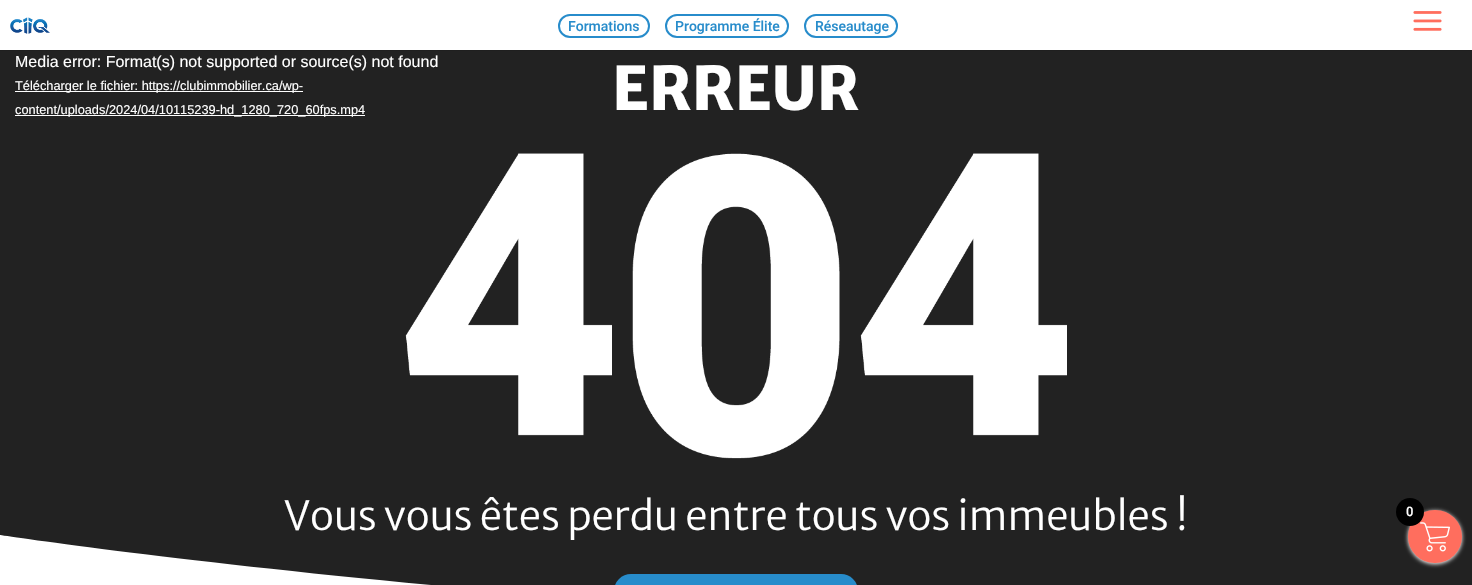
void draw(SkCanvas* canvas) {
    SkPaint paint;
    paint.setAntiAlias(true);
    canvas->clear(0xFFFFFFFF);
    paint.setColor(0xFF1F1F1F);
    canvas->drawRect(SkRect::MakeXYWH(0, 50, 1472, 1), paint);
    canvas->drawImageRect(SkImages::DeferredFromEncodedData(SkData::MakeFromFileName("img1.png")), SkRect::MakeXYWH(10, 17, 40, 17), SkSamplingOptions());
    paint.setStyle(SkPaint::kStroke_Style);
    paint.setStrokeWidth(2);
    paint.setColor(0xFF278CCB);
    canvas->drawRoundRect(SkRect::MakeXYWH(559, 15, 90, 22), 11, 11, paint);
    SkFont font1(fontMgr->matchFamilyStyle("Roboto", SkFontStyle(500, SkFontStyle::kNormal_Width, SkFontStyle::kUpright_Slant)), 14);
    font1.setSubpixel(true);
    paint.setStyle(SkPaint::kFill_Style);
    canvas->drawString("Formations", 568, 31, font1, paint);
    paint.setStyle(SkPaint::kStroke_Style);
    canvas->drawRoundRect(SkRect::MakeXYWH(666, 15, 122, 22), 11, 11, paint);
    paint.setStyle(SkPaint::kFill_Style);
    canvas->drawString("Programme Élite", 675, 31, font1, paint);
    paint.setStyle(SkPaint::kStroke_Style);
    canvas->drawRoundRect(SkRect::MakeXYWH(805, 15, 92, 22), 11, 11, paint);
    paint.setStyle(SkPaint::kFill_Style);
    canvas->drawString("Réseautage", 815, 31, font1, paint);
    canvas->drawImageRect(SkImages::DeferredFromEncodedData(SkData::MakeFromFileName("img2.png")), SkRect::MakeXYWH(1413, 11, 29, 20), SkSamplingOptions());
    paint.setColor(0xFF222222);
    canvas->drawRect(SkRect::MakeXYWH(0, 51, 1472, 534), paint);
    SkFont font2(fontMgr->matchFamilyStyle("Liberation Sans", SkFontStyle::Normal()), 16);
    font2.setSubpixel(true);
    paint.setColor(0xFFFFFFFF);
    canvas->drawString("Media error: Format(s) not supported or source(s) not found", 15, 67, font2, paint);
    canvas->drawRect(SkRect::MakeXYWH(15, 91, 288, 1), paint);
    SkFont font3(fontMgr->matchFamilyStyle("Liberation Sans", SkFontStyle::Normal()), 12.8f);
    font3.setSubpixel(true);
    canvas->drawString("Télécharger le fichier: https://clubimmobilier.ca/wp-", 15, 90, font3, paint);
    canvas->drawRect(SkRect::MakeXYWH(15, 115, 350, 1), paint);
    canvas->drawString("content/uploads/2024/04/10115239-hd_1280_720_60fps.mp4", 15, 114, font3, paint);
    canvas->drawPath(SkPathBuilder().moveTo(0, 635).lineTo(1472, 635).cubicTo(659, 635, 0, 535, 0, 535).close().detach(), paint);
    SkFont font4(fontMgr->matchFamilyStyle("Merriweather Sans", SkFontStyle(800, SkFontStyle::kNormal_Width, SkFontStyle::kUpright_Slant)), 60);
    font4.setSubpixel(true);
    canvas->drawString("ERREUR", 612, 110, font4, paint);
    canvas->drawImageRect(SkImages::DeferredFromEncodedData(SkData::MakeFromFileName("img3.png")), SkRect::MakeXYWH(405, 153, 207, 283), SkSamplingOptions());
    canvas->drawImageRect(SkImages::DeferredFromEncodedData(SkData::MakeFromFileName("img4.png")), SkRect::MakeXYWH(632, 153, 208, 306), SkSamplingOptions());
    canvas->drawImageRect(SkImages::DeferredFromEncodedData(SkData::MakeFromFileName("img3.png")), SkRect::MakeXYWH(860, 153, 207, 283), SkSamplingOptions());
    SkFont font5(fontMgr->matchFamilyStyle("Merriweather Sans", SkFontStyle(300, SkFontStyle::kNormal_Width, SkFontStyle::kUpright_Slant)), 40);
    font5.setSubpixel(true);
    canvas->drawString("Vous vous êtes perdu entre tous vos immeubles !", 284, 530, font5, paint);
    paint.setColor(0xFF278CCB);
    canvas->drawRoundRect(SkRect::MakeXYWH(614, 574, 244, 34), 23, 23, paint);
    paint.setColor(0xFFFFFFFF);
    paint.setMaskFilter(SkMaskFilter::MakeBlur(kNormal_SkBlurStyle, 2));
    canvas->drawRoundRect(SkRect::MakeXYWH(1408, 511, 54, 53), 26.5f, 26.5f, paint);
    paint.setMaskFilter(nullptr);
    paint.setColor(0xFFFF6E5E);
    canvas->drawRoundRect(SkRect::MakeXYWH(1408, 510, 54, 53), 26.5f, 26.5f, paint);
    paint.setColor(0xFF000000);
    canvas->drawCircle(1410, 512, 14, paint);
    SkFont font6(fontMgr->matchFamilyStyle("Roboto", SkFontStyle(500, SkFontStyle::kNormal_Width, SkFontStyle::kUpright_Slant)), 13);
    font6.setSubpixel(true);
    paint.setColor(0xFFFFFFFF);
    canvas->drawString("0", 1406, 516, font6, paint);
    canvas->drawImageRect(SkImages::DeferredFromEncodedData(SkData::MakeFromFileName("img5.png")), SkRect::MakeXYWH(1420, 522, 30, 30), SkSamplingOptions());
}
